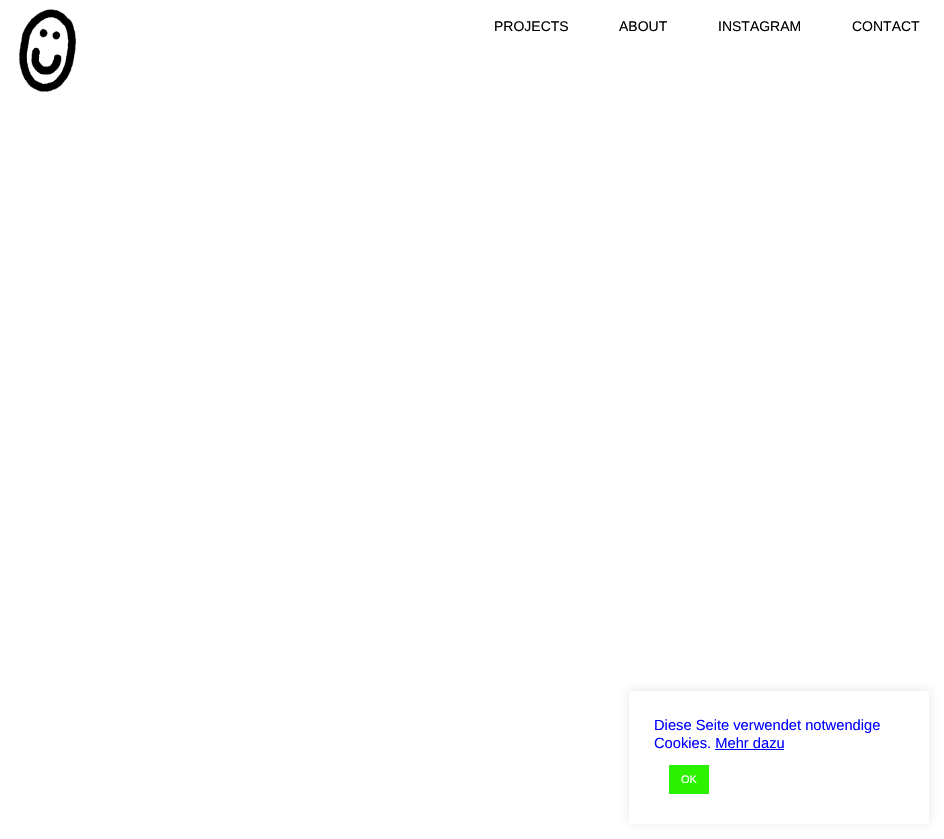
void draw(SkCanvas* canvas) {
    SkPaint paint;
    paint.setAntiAlias(true);
    canvas->clear(0xFFFFFFFF);
    canvas->drawImageRect(SkImages::DeferredFromEncodedData(SkData::MakeFromFileName("img1.png")), SkRect::MakeXYWH(19, 9, 57, 83), SkSamplingOptions());
    SkFont font1(fontMgr->matchFamilyStyle("Liberation Sans", SkFontStyle::Normal()), 14);
    font1.setSubpixel(true);
    paint.setColor(0xFF000000);
    canvas->drawString("PROJECTS", 494, 31, font1, paint);
    canvas->drawString("ABOUT", 619, 31, font1, paint);
    canvas->drawString("INSTAGRAM", 718, 31, font1, paint);
    canvas->drawString("CONTACT", 852, 31, font1, paint);
    canvas->save();
    canvas->clipPath(SkPathBuilder(SkPathFillType::kEvenOdd).moveTo(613, 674).lineTo(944, 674).lineTo(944, 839).lineTo(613, 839).close().moveTo(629, 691).lineTo(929, 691).lineTo(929, 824).lineTo(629, 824).close().detach(), true);
    paint.setColor(0x4DACABAB);
    paint.setMaskFilter(SkMaskFilter::MakeBlur(kNormal_SkBlurStyle, 5));
    canvas->drawRect(SkRect::MakeXYWH(629, 690, 300, 133), paint);
    paint.setMaskFilter(nullptr);
    canvas->restore();
    SkFont font2(fontMgr->matchFamilyStyle("Liberation Sans", SkFontStyle::Normal()), 14.7f);
    font2.setSubpixel(true);
    paint.setColor(0xFF0000FF);
    canvas->drawString("Diese Seite verwendet notwendige", 654, 730, font2, paint);
    canvas->drawString("Cookies. Mehr dazu", 654, 748, font2, paint);
    canvas->drawRect(SkRect::MakeXYWH(715, 749, 69, 1), paint);
    paint.setColor(0xFF2CF200);
    canvas->drawRect(SkRect::MakeXYWH(669, 765, 40, 29), paint);
    SkFont font3(fontMgr->matchFamilyStyle("Liberation Sans", SkFontStyle::Normal()), 11);
    font3.setSubpixel(true);
    paint.setColor(0xFFFFFFFF);
    canvas->drawString("OK", 681, 783, font3, paint);
}
